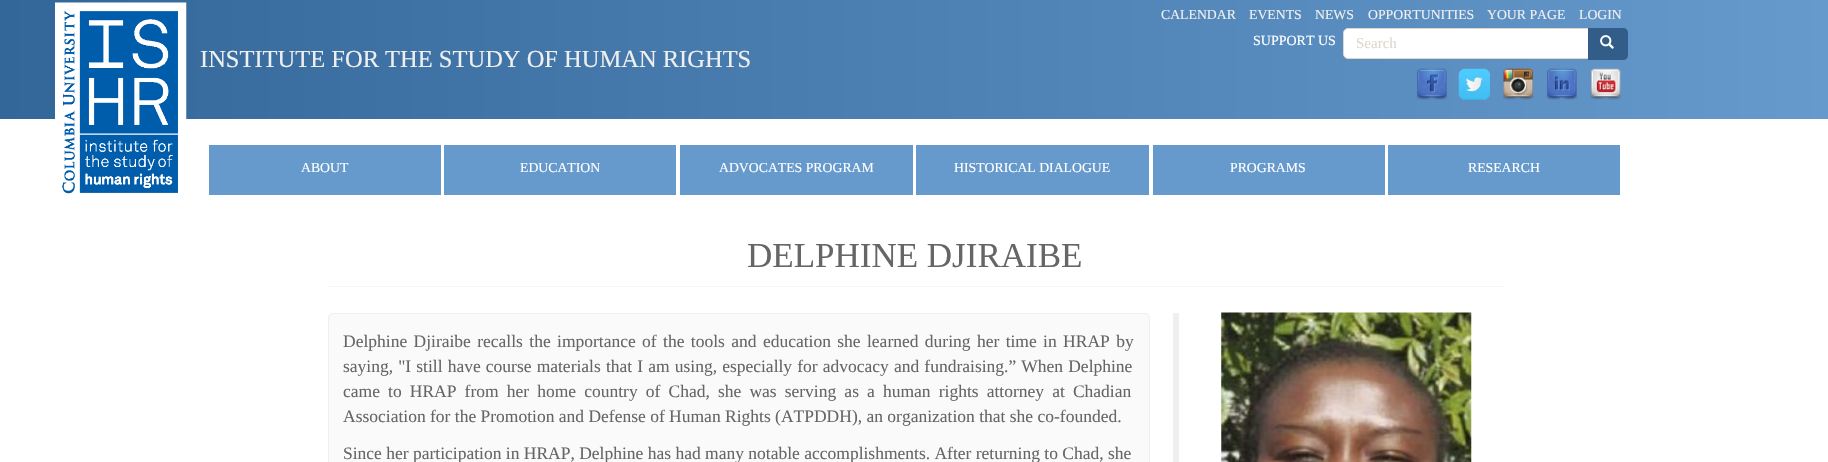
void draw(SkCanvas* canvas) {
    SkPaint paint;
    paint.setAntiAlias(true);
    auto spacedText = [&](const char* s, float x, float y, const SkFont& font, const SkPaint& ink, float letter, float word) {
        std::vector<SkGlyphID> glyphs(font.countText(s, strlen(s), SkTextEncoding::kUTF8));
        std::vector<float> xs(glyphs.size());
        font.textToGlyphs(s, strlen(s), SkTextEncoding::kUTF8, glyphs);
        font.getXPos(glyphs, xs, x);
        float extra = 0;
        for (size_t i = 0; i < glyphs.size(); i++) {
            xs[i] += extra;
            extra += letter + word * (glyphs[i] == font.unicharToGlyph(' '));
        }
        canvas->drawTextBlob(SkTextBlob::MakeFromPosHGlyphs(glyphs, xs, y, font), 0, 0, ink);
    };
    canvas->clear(0xFFFFFFFF);
    {
        const SkColor colors[] = {0xFF336699, 0xFF6699CC};
        const float stops[] = {0, 1};
        const SkPoint ends[] = {{0, 59}, {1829, 59}};
        paint.setShader(SkGradientShader::MakeLinear(ends, colors, stops, 2, SkTileMode::kClamp));
        paint.setAlpha(255);
    }
    canvas->drawRect(SkRect::MakeXYWH(0, 0, 1828, 119), paint);
    SkFont font1(fontMgr->matchFamilyStyle("Liberation Serif", SkFontStyle::Normal()), 13.75f);
    font1.setSubpixel(true);
    paint.setShader(nullptr);
    paint.setColor(0xFFEFEFEF);
    canvas->drawString("CALENDAR", 1161, 19, font1, paint);
    canvas->drawString("EVENTS", 1249, 19, font1, paint);
    canvas->drawString("NEWS", 1315, 19, font1, paint);
    canvas->drawString("OPPORTUNITIES", 1368, 19, font1, paint);
    canvas->drawString("YOUR PAGE", 1487, 19, font1, paint);
    canvas->drawString("LOGIN", 1579, 19, font1, paint);
    SkFont font2(fontMgr->matchFamilyStyle("Liberation Serif", SkFontStyle::Normal()), 14);
    font2.setSubpixel(true);
    paint.setColor(0xFFFFFFFF);
    canvas->drawString("SUPPORT US", 1253, 45, font2, paint);
    canvas->drawPath(SkPathBuilder().moveTo(1348, 28.5f).lineTo(1588.5f, 28.5f).lineTo(1588.5f, 58.5f).lineTo(1348, 58.5f).cubicTo(1345.5f, 58.5f, 1343.5f, 56.5f, 1343.5f, 54).lineTo(1343.5f, 33).cubicTo(1343.5f, 30.5f, 1345.5f, 28.5f, 1348, 28.5f).close().detach(), paint);
    paint.setStyle(SkPaint::kStroke_Style);
    paint.setStrokeWidth(1);
    paint.setColor(0xFFDFD7CA);
    canvas->drawPath(SkPathBuilder().moveTo(1348, 28.5f).lineTo(1588.5f, 28.5f).lineTo(1588.5f, 58.5f).lineTo(1348, 58.5f).cubicTo(1345.5f, 58.5f, 1343.5f, 56.5f, 1343.5f, 54).lineTo(1343.5f, 33).cubicTo(1343.5f, 30.5f, 1345.5f, 28.5f, 1348, 28.5f).close().detach(), paint);
    SkFont font3(fontMgr->matchFamilyStyle("Liberation Serif", SkFontStyle::Normal()), 15);
    font3.setSubpixel(true);
    paint.setStyle(SkPaint::kFill_Style);
    canvas->drawString("Search", 1356, 48, font3, paint);
    paint.setColor(0xFF325D88);
    canvas->drawPath(SkPathBuilder().moveTo(1588, 28).lineTo(1623, 28).cubicTo(1626, 28, 1628, 30, 1628, 33).lineTo(1628, 55).cubicTo(1628, 58, 1626, 60, 1623, 60).lineTo(1588, 60).close().detach(), paint);
    canvas->drawImageRect(SkImages::DeferredFromEncodedData(SkData::MakeFromFileName("img1.png")), SkRect::MakeXYWH(1600, 35, 14, 14), SkSamplingOptions());
    canvas->drawImageRect(SkImages::DeferredFromEncodedData(SkData::MakeFromFileName("img2.png")), SkRect::MakeXYWH(1416, 68, 32, 32), SkSamplingOptions());
    canvas->drawImageRect(SkImages::DeferredFromEncodedData(SkData::MakeFromFileName("img3.png")), SkRect::MakeXYWH(1458, 68, 32, 32), SkSamplingOptions());
    canvas->drawImageRect(SkImages::DeferredFromEncodedData(SkData::MakeFromFileName("img4.png")), SkRect::MakeXYWH(1502, 68, 32, 32), SkSamplingOptions());
    canvas->drawImageRect(SkImages::DeferredFromEncodedData(SkData::MakeFromFileName("img5.png")), SkRect::MakeXYWH(1546, 68, 32, 32), SkSamplingOptions());
    canvas->drawImageRect(SkImages::DeferredFromEncodedData(SkData::MakeFromFileName("img6.png")), SkRect::MakeXYWH(1590, 68, 31, 32), SkSamplingOptions());
    canvas->drawImageRect(SkImages::DeferredFromEncodedData(SkData::MakeFromFileName("img7.png")), SkRect::MakeXYWH(55, 2, 132, 192), SkSamplingOptions());
    SkFont font4(fontMgr->matchFamilyStyle("Liberation Serif", SkFontStyle::Normal()), 24.5f);
    font4.setSubpixel(true);
    paint.setColor(0xFFEFEFEF);
    canvas->drawString("INSTITUTE FOR THE STUDY OF HUMAN RIGHTS", 200, 67, font4, paint);
    paint.setColor(0xFF6699CC);
    canvas->drawRect(SkRect::MakeXYWH(209, 145, 232, 50), paint);
    paint.setColor(0xFFFFFFFF);
    canvas->drawString("ABOUT", 301, 172, font1, paint);
    paint.setColor(0xFF6699CC);
    canvas->drawRect(SkRect::MakeXYWH(444, 145, 232, 50), paint);
    paint.setColor(0xFFFFFFFF);
    canvas->drawString("EDUCATION", 520, 172, font1, paint);
    paint.setColor(0xFF6699CC);
    canvas->drawRect(SkRect::MakeXYWH(680, 145, 233, 50), paint);
    paint.setColor(0xFFFFFFFF);
    canvas->drawString("ADVOCATES PROGRAM", 719, 172, font1, paint);
    paint.setColor(0xFF6699CC);
    canvas->drawRect(SkRect::MakeXYWH(916, 145, 233, 50), paint);
    paint.setColor(0xFFFFFFFF);
    canvas->drawString("HISTORICAL DIALOGUE", 954, 172, font1, paint);
    paint.setColor(0xFF6699CC);
    canvas->drawRect(SkRect::MakeXYWH(1153, 145, 232, 50), paint);
    paint.setColor(0xFFFFFFFF);
    canvas->drawString("PROGRAMS", 1230, 172, font1, paint);
    paint.setColor(0xFF6699CC);
    canvas->drawRect(SkRect::MakeXYWH(1388, 145, 232, 50), paint);
    paint.setColor(0xFFFFFFFF);
    canvas->drawString("RESEARCH", 1468, 172, font1, paint);
    paint.setColor(0xFFF8F5F0);
    canvas->drawRect(SkRect::MakeXYWH(328, 286, 1175, 1), paint);
    SkFont font5(fontMgr->matchFamilyStyle("Liberation Serif", SkFontStyle::Normal()), 35);
    font5.setSubpixel(true);
    paint.setColor(0xFF666666);
    canvas->drawString("DELPHINE DJIRAIBE", 747, 267, font5, paint);
    paint.setColor(0xFFFAFAFA);
    canvas->drawRoundRect(SkRect::MakeXYWH(328.5f, 313.5f, 821, 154), 4.5f, 4.5f, paint);
    paint.setStyle(SkPaint::kStroke_Style);
    paint.setColor(0xFFEFEFEF);
    canvas->drawRoundRect(SkRect::MakeXYWH(328.5f, 313.5f, 821, 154), 4.5f, 4.5f, paint);
    SkFont font6(fontMgr->matchFamilyStyle("Liberation Serif", SkFontStyle::Normal()), 17.5f);
    font6.setSubpixel(true);
    paint.setStyle(SkPaint::kFill_Style);
    paint.setColor(0xFF666666);
    spacedText("Delphine Djiraibe recalls the importance of the tools and education she learned during her time in HRAP by", 343, 347, font6, paint, 0, 2);
    spacedText("saying, \"I still have course materials that I am using, especially for advocacy and fundraising.” When Delphine", 343, 372, font6, paint, 0, 0.75f);
    spacedText("came to HRAP from her home country of Chad, she was serving as a human rights attorney at Chadian", 343, 397, font6, paint, 0, 3.75f);
    canvas->drawString("Association for the Promotion and Defense of Human Rights (ATPDDH), an organization that she co-founded.", 343, 422, font6, paint);
    canvas->drawString("Since her participation in HRAP, Delphine has had many notable accomplishments. After returning to Chad, she", 343, 459, font6, paint);
    paint.setColor(0xFFEFEFEF);
    canvas->drawRect(SkRect::MakeXYWH(1173, 313, 6, 149), paint);
    canvas->drawImageRect(SkImages::DeferredFromEncodedData(SkData::MakeFromFileName("img8.png")), SkRect::MakeXYWH(1221, 312, 251, 150), SkSamplingOptions());
}
